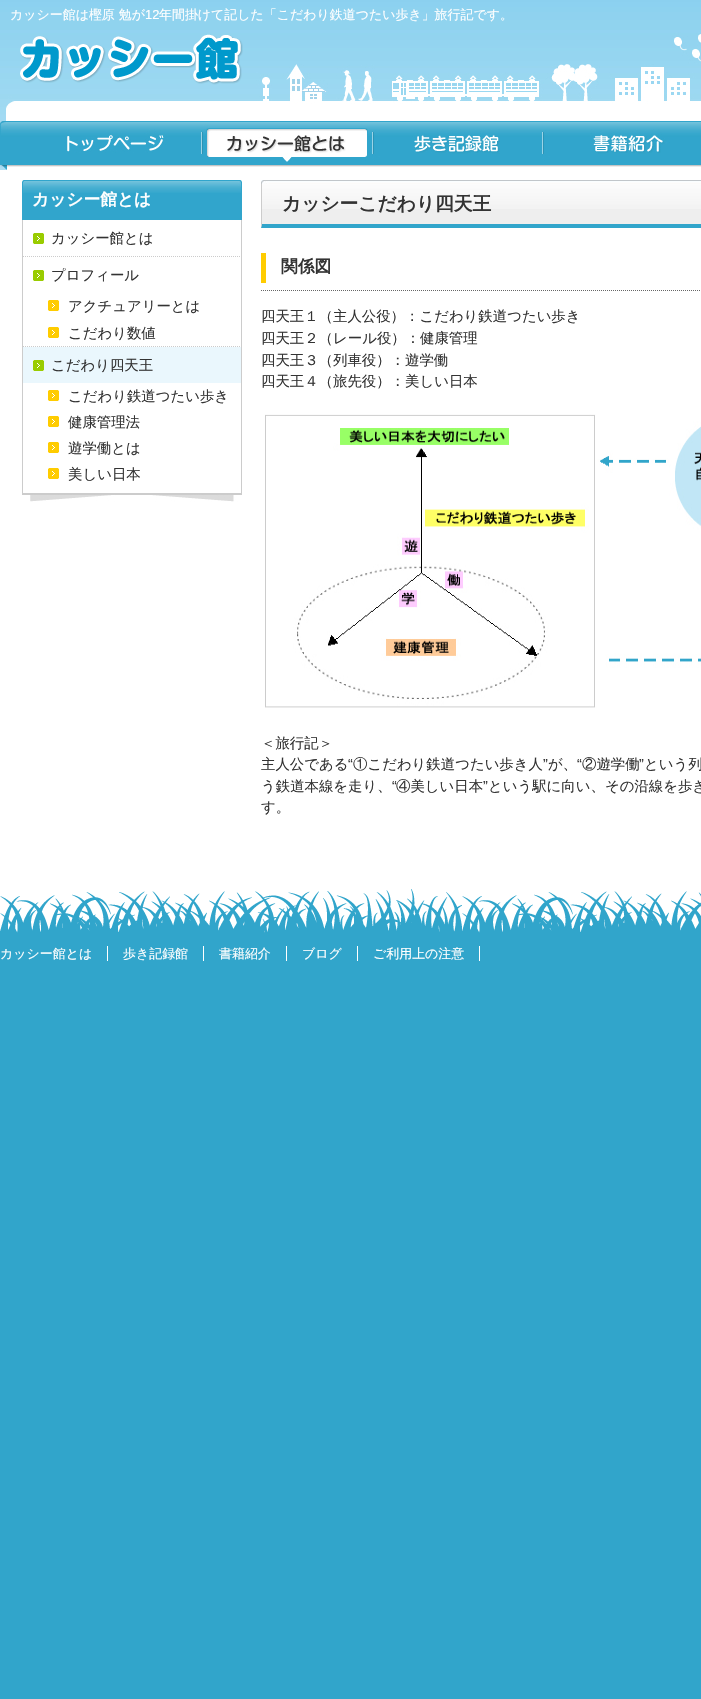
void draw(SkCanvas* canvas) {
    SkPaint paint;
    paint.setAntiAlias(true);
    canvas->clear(0xFF31A5CB);
    paint.setColor(0xFFFFFFFF);
    canvas->drawRect(SkRect::MakeXYWH(0, 167, 701, 722), paint);
    canvas->drawImageRect(SkImages::DeferredFromEncodedData(SkData::MakeFromFileName("img1.png")), SkRect::MakeXYWH(0, 0, 701, 121), SkSamplingOptions());
    SkFont font1(fontMgr->matchFamilyStyle("WenQuanYi Zen Hei", SkFontStyle(500, SkFontStyle::kNormal_Width, SkFontStyle::kUpright_Slant)), 12.95f);
    font1.setSubpixel(true);
    canvas->drawString("カッシー館は樫原 勉が", 10, 19, font1, paint);
    SkFont font2(fontMgr->matchFamilyStyle("Liberation Sans", SkFontStyle::Normal()), 12.95f);
    font2.setSubpixel(true);
    canvas->drawString("12", 145, 19, font2, paint);
    canvas->drawString("年間掛けて記した「こだわり鉄道つたい歩き」旅行記です。", 159, 19, font1, paint);
    canvas->drawImageRect(SkImages::DeferredFromEncodedData(SkData::MakeFromFileName("img2.png")), SkRect::MakeXYWH(20, 34, 223, 51), SkSamplingOptions());
    canvas->drawImageRect(SkImages::DeferredFromEncodedData(SkData::MakeFromFileName("img3.png")), SkRect::MakeXYWH(0, 121, 201, 49), SkSamplingOptions());
    canvas->drawImageRect(SkImages::DeferredFromEncodedData(SkData::MakeFromFileName("img4.png")), SkRect::MakeXYWH(201, 121, 171, 46), SkSamplingOptions());
    canvas->drawImageRect(SkImages::DeferredFromEncodedData(SkData::MakeFromFileName("img5.png")), SkRect::MakeXYWH(372, 121, 170, 46), SkSamplingOptions());
    canvas->drawImageRect(SkImages::DeferredFromEncodedData(SkData::MakeFromFileName("img6.png")), SkRect::MakeXYWH(542, 121, 159, 46), SkSamplingOptions());
    paint.setColor(0xFF31A5CC);
    canvas->drawRect(SkRect::MakeXYWH(22, 193, 220, 27), paint);
    canvas->drawImageRect(SkImages::DeferredFromEncodedData(SkData::MakeFromFileName("img7.png")), SkRect::MakeXYWH(22, 180, 220, 13), SkSamplingOptions());
    SkFont font3(fontMgr->matchFamilyStyle("WenQuanYi Zen Hei", SkFontStyle::Bold()), 16.75f);
    font3.setSubpixel(true);
    paint.setColor(0xFFFFFFFF);
    canvas->drawString("カッシー館とは", 32, 205, font3, paint);
    paint.setColor(0xFFCCCCCC);
    canvas->drawRect(SkRect::MakeXYWH(241, 220, 1, 274), paint);
    canvas->drawRect(SkRect::MakeXYWH(22, 493, 220, 1), paint);
    canvas->drawRect(SkRect::MakeXYWH(22, 220, 1, 274), paint);
    canvas->drawImageRect(SkImages::DeferredFromEncodedData(SkData::MakeFromFileName("img8.png")), SkRect::MakeXYWH(33, 233, 11, 11), SkSamplingOptions());
    paint.setStyle(SkPaint::kStroke_Style);
    paint.setStrokeWidth(1);
    paint.setPathEffect(SkDashPathEffect::Make({{1, 1}}, 0));
    canvas->drawPath(SkPathBuilder().moveTo(23, 256.5f).lineTo(241, 256.5f).detach(), paint);
    paint.setPathEffect(nullptr);
    SkFont font4(fontMgr->matchFamilyStyle("WenQuanYi Zen Hei", SkFontStyle(500, SkFontStyle::kNormal_Width, SkFontStyle::kUpright_Slant)), 14.4f);
    font4.setSubpixel(true);
    paint.setStyle(SkPaint::kFill_Style);
    paint.setColor(0xFF333333);
    canvas->drawString("カッシー館とは", 51, 243, font4, paint);
    canvas->drawImageRect(SkImages::DeferredFromEncodedData(SkData::MakeFromFileName("img8.png")), SkRect::MakeXYWH(33, 270, 11, 11), SkSamplingOptions());
    canvas->drawString("プロフィール", 51, 280, font4, paint);
    canvas->drawImageRect(SkImages::DeferredFromEncodedData(SkData::MakeFromFileName("img9.png")), SkRect::MakeXYWH(48, 300, 11, 11), SkSamplingOptions());
    canvas->drawString("アクチュアリーとは", 68, 311, font4, paint);
    canvas->drawImageRect(SkImages::DeferredFromEncodedData(SkData::MakeFromFileName("img9.png")), SkRect::MakeXYWH(48, 327, 11, 11), SkSamplingOptions());
    paint.setStyle(SkPaint::kStroke_Style);
    paint.setColor(0xFFCCCCCC);
    paint.setPathEffect(SkDashPathEffect::Make({{1, 1}}, 0));
    canvas->drawPath(SkPathBuilder().moveTo(23, 346.5f).lineTo(241, 346.5f).detach(), paint);
    paint.setPathEffect(nullptr);
    paint.setStyle(SkPaint::kFill_Style);
    paint.setColor(0xFF333333);
    canvas->drawString("こだわり数値", 68, 338, font4, paint);
    paint.setColor(0xFFEAF7FD);
    canvas->drawRect(SkRect::MakeXYWH(23, 347, 218, 36), paint);
    canvas->drawImageRect(SkImages::DeferredFromEncodedData(SkData::MakeFromFileName("img8.png")), SkRect::MakeXYWH(33, 360, 11, 11), SkSamplingOptions());
    paint.setColor(0xFF333333);
    canvas->drawString("こだわり四天王", 51, 370, font4, paint);
    canvas->drawImageRect(SkImages::DeferredFromEncodedData(SkData::MakeFromFileName("img9.png")), SkRect::MakeXYWH(48, 390, 11, 11), SkSamplingOptions());
    canvas->drawString("こだわり鉄道つたい歩き", 68, 401, font4, paint);
    canvas->drawImageRect(SkImages::DeferredFromEncodedData(SkData::MakeFromFileName("img9.png")), SkRect::MakeXYWH(48, 416, 11, 11), SkSamplingOptions());
    canvas->drawString("健康管理法", 68, 427, font4, paint);
    canvas->drawImageRect(SkImages::DeferredFromEncodedData(SkData::MakeFromFileName("img9.png")), SkRect::MakeXYWH(48, 442, 11, 11), SkSamplingOptions());
    canvas->drawString("遊学働とは", 68, 453, font4, paint);
    canvas->drawImageRect(SkImages::DeferredFromEncodedData(SkData::MakeFromFileName("img9.png")), SkRect::MakeXYWH(48, 468, 11, 11), SkSamplingOptions());
    canvas->drawString("美しい日本", 68, 479, font4, paint);
    canvas->drawImageRect(SkImages::DeferredFromEncodedData(SkData::MakeFromFileName("img10.png")), SkRect::MakeXYWH(22, 494, 220, 8), SkSamplingOptions());
    canvas->drawImageRect(SkImages::DeferredFromEncodedData(SkData::MakeFromFileName("img11.png")), SkRect::MakeXYWH(261, 180, 440, 4), SkSamplingOptions());
    paint.setColor(0xFFEEEEEE);
    canvas->drawRect(SkRect::MakeXYWH(261, 209, 440, 19), paint);
    canvas->drawImageRect(SkImages::DeferredFromEncodedData(SkData::MakeFromFileName("img12.png")), SkRect::MakeXYWH(262, 184, 439, 25), SkSamplingOptions());
    paint.setColor(0xFF31A5CB);
    canvas->drawPath(SkPathBuilder().moveTo(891, 228).lineTo(261, 228).lineTo(262, 224).lineTo(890, 224).close().detach(), paint);
    paint.setColor(0xFFCCCCCC);
    canvas->drawPath(SkPathBuilder().moveTo(261, 228).lineTo(261, 184).lineTo(262, 184).lineTo(262, 224).close().detach(), paint);
    SkFont font5(fontMgr->matchFamilyStyle("WenQuanYi Zen Hei", SkFontStyle::Bold()), 18.75f);
    font5.setSubpixel(true);
    paint.setColor(0xFF333333);
    canvas->drawString("カッシーこだわり四天王", 282, 210, font5, paint);
    paint.setColor(0xFFFFCC00);
    canvas->drawRect(SkRect::MakeXYWH(261, 253, 5, 30), paint);
    paint.setStyle(SkPaint::kStroke_Style);
    paint.setColor(0xFF666666);
    paint.setPathEffect(SkDashPathEffect::Make({{1, 1}}, 0));
    canvas->drawPath(SkPathBuilder().moveTo(261, 290.5f).lineTo(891, 290.5f).detach(), paint);
    paint.setPathEffect(nullptr);
    paint.setStyle(SkPaint::kFill_Style);
    paint.setColor(0xFF333333);
    canvas->drawString("関係図", 281, 272, font3, paint);
    canvas->drawString("四天王１（主人公役）：こだわり鉄道つたい歩き", 261, 321, font4, paint);
    canvas->drawString("四天王２（レール役）：健康管理", 261, 343, font4, paint);
    canvas->drawString("四天王３（列車役）：遊学働", 261, 365, font4, paint);
    canvas->drawString("四天王４（旅先役）：美しい日本", 261, 386, font4, paint);
    canvas->drawImageRect(SkImages::DeferredFromEncodedData(SkData::MakeFromFileName("img13.png")), SkRect::MakeXYWH(265, 414, 436, 294), SkSamplingOptions());
    canvas->drawString("＜旅行記＞", 261, 748, font4, paint);
    canvas->drawString("主人公である", 261, 769, font4, paint);
    SkFont font6(fontMgr->matchFamilyStyle("Liberation Sans", SkFontStyle::Normal()), 14.4f);
    font6.setSubpixel(true);
    canvas->drawString("“", 348, 769, font6, paint);
    canvas->drawString("①こだわり鉄道つたい歩き人", 353, 769, font4, paint);
    canvas->drawString("”", 543, 769, font6, paint);
    canvas->drawString("が、", 548, 769, font4, paint);
    canvas->drawString("“", 577, 769, font6, paint);
    canvas->drawString("②遊学働", 582, 769, font4, paint);
    canvas->drawString("”", 639, 769, font6, paint);
    canvas->drawString("という列", 644, 769, font4, paint);
    canvas->drawString("う鉄道本線を走り、", 261, 791, font4, paint);
    canvas->drawString("“", 392, 791, font6, paint);
    canvas->drawString("④美しい日本", 396, 791, font4, paint);
    canvas->drawString("”", 483, 791, font6, paint);
    canvas->drawString("という駅に向い、その沿線を歩き", 488, 791, font4, paint);
    canvas->drawString("す。", 261, 812, font4, paint);
    canvas->drawImageRect(SkImages::DeferredFromEncodedData(SkData::MakeFromFileName("img14.png")), SkRect::MakeXYWH(0, 889, 701, 44), SkSamplingOptions());
    paint.setColor(0xFFFFFFFF);
    canvas->drawString("カッシー館とは", 0, 958, font1, paint);
    canvas->drawRect(SkRect::MakeXYWH(107, 946, 1, 15), paint);
    canvas->drawString("歩き記録館", 123, 958, font1, paint);
    canvas->drawRect(SkRect::MakeXYWH(203, 946, 1, 15), paint);
    canvas->drawString("書籍紹介", 219, 958, font1, paint);
    canvas->drawRect(SkRect::MakeXYWH(286, 946, 1, 15), paint);
    canvas->drawString("ブログ", 302, 958, font1, paint);
    canvas->drawRect(SkRect::MakeXYWH(357, 946, 1, 15), paint);
    canvas->drawString("ご利用上の注意", 373, 958, font1, paint);
    canvas->drawRect(SkRect::MakeXYWH(479, 946, 1, 15), paint);
}
